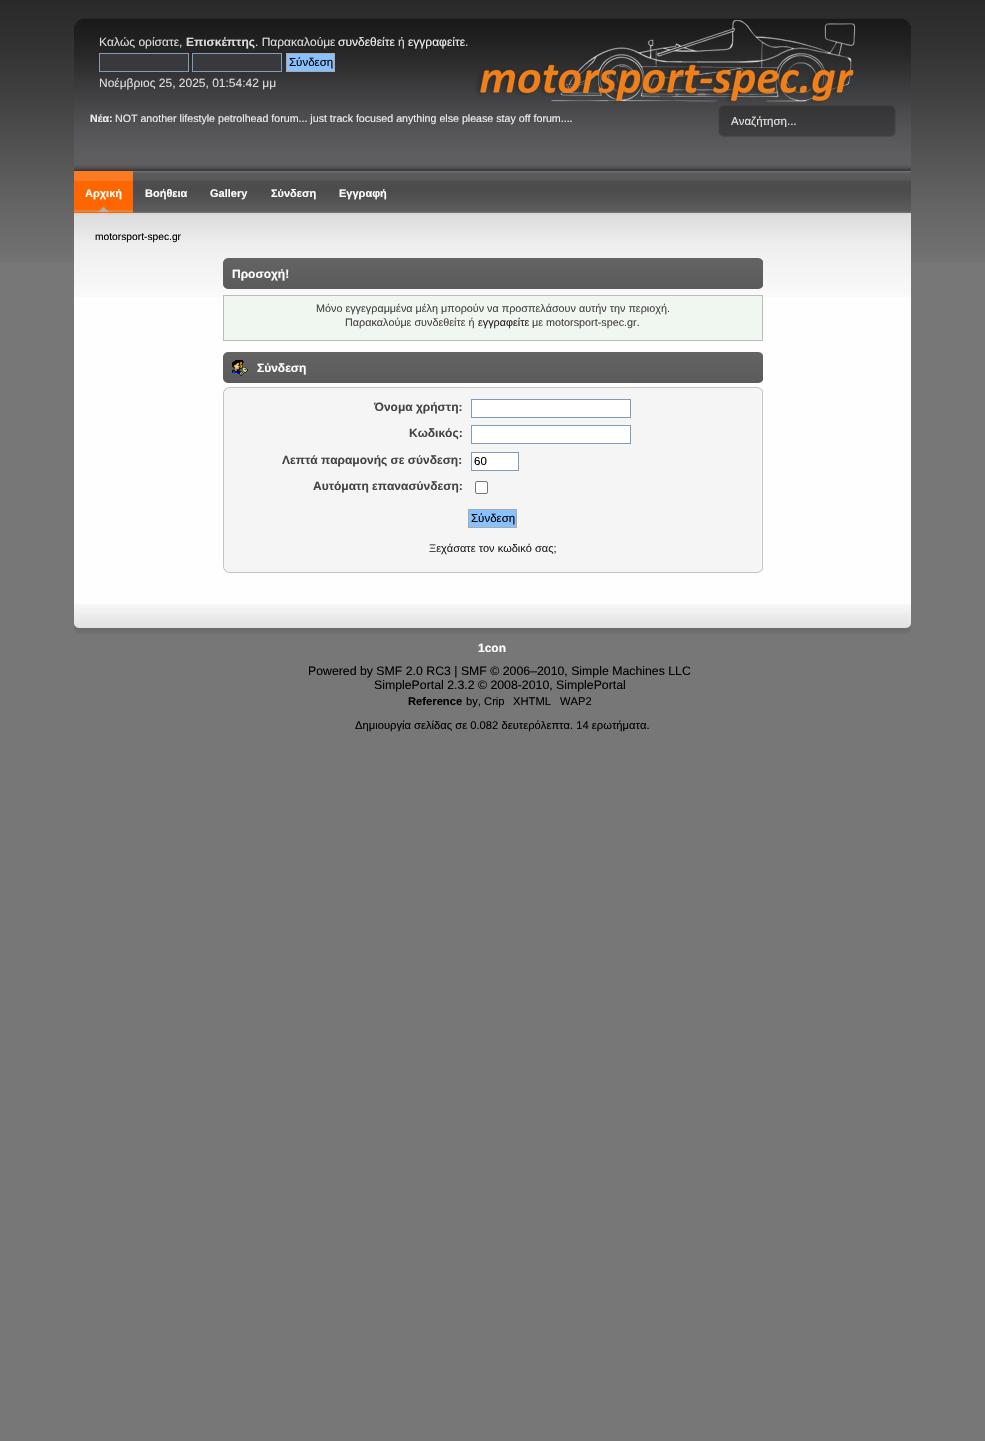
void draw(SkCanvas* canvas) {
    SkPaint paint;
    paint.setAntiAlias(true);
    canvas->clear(0xFF777777);
    canvas->drawImageRect(SkImages::DeferredFromEncodedData(SkData::MakeFromFileName("img1.png")), SkRect::MakeXYWH(0, 0, 985, 262), SkSamplingOptions());
    canvas->drawImageRect(SkImages::DeferredFromEncodedData(SkData::MakeFromFileName("img2.png")), SkRect::MakeXYWH(74, 18, 837, 153), SkSamplingOptions());
    canvas->drawImageRect(SkImages::DeferredFromEncodedData(SkData::MakeFromFileName("img3.png")), SkRect::MakeXYWH(74, 18, 7, 7), SkSamplingOptions());
    canvas->drawImageRect(SkImages::DeferredFromEncodedData(SkData::MakeFromFileName("img4.png")), SkRect::MakeXYWH(904, 18, 7, 7), SkSamplingOptions());
    SkFont font1(fontMgr->matchFamilyStyle("Liberation Sans", SkFontStyle::Normal()), 12);
    font1.setSubpixel(true);
    paint.setColor(0xFFDDDDDD);
    canvas->drawString("Καλώς ορίσατε,", 99, 46, font1, paint);
    SkFont font2(fontMgr->matchFamilyStyle("Liberation Sans", SkFontStyle::Bold()), 12);
    font2.setSubpixel(true);
    canvas->drawString("Επισκέπτης", 186, 46, font2, paint);
    canvas->drawString(". Παρακαλούμε", 255, 46, font1, paint);
    paint.setColor(0xFFEEEEEE);
    canvas->drawString("συνδεθείτε", 338, 46, font1, paint);
    paint.setColor(0xFFDDDDDD);
    canvas->drawString("ή", 398, 46, font1, paint);
    paint.setColor(0xFFEEEEEE);
    canvas->drawString("εγγραφείτε", 408, 46, font1, paint);
    paint.setColor(0xFFDDDDDD);
    canvas->drawString(".", 465, 46, font1, paint);
    paint.setColor(0xFF39393B);
    canvas->drawRect(SkRect::MakeXYWH(99.5f, 53.5f, 89, 18), paint);
    paint.setStyle(SkPaint::kStroke_Style);
    paint.setStrokeWidth(1);
    paint.setColor(0xFF7F9DB9);
    canvas->drawRect(SkRect::MakeXYWH(99.5f, 53.5f, 89, 18), paint);
    paint.setStyle(SkPaint::kFill_Style);
    paint.setColor(0xFF39393B);
    canvas->drawRect(SkRect::MakeXYWH(192.5f, 53.5f, 89, 18), paint);
    paint.setStyle(SkPaint::kStroke_Style);
    paint.setColor(0xFF7F9DB9);
    canvas->drawRect(SkRect::MakeXYWH(192.5f, 53.5f, 89, 18), paint);
    paint.setStyle(SkPaint::kFill_Style);
    paint.setColor(0xFF89C1FF);
    canvas->drawRect(SkRect::MakeXYWH(286.5f, 53.5f, 48, 18), paint);
    paint.setStyle(SkPaint::kStroke_Style);
    paint.setColor(0xFFAAAAAA);
    canvas->drawRect(SkRect::MakeXYWH(286.5f, 53.5f, 48, 18), paint);
    SkFont font3(fontMgr->matchFamilyStyle("Liberation Sans", SkFontStyle::Normal()), 11.5f);
    font3.setSubpixel(true);
    paint.setStyle(SkPaint::kFill_Style);
    paint.setColor(0xFF000000);
    canvas->drawString("Σύνδεση", 289, 66, font3, paint);
    paint.setColor(0xFFDDDDDD);
    canvas->drawString("Νοέμβριος 25, 2025, 01:54:42 μμ", 99, 87, font1, paint);
    canvas->drawImageRect(SkImages::DeferredFromEncodedData(SkData::MakeFromFileName("img5.png")), SkRect::MakeXYWH(475, 20, 381, 84), SkSamplingOptions());
    SkFont font4(fontMgr->matchFamilyStyle("Liberation Sans", SkFontStyle::Bold()), 10.65f);
    font4.setSubpixel(true);
    paint.setColor(0xFFEEEEEE);
    canvas->drawString("Νέα:", 90, 122, font4, paint);
    SkFont font5(fontMgr->matchFamilyStyle("Liberation Sans", SkFontStyle::Normal()), 10.65f);
    font5.setSubpixel(true);
    canvas->drawString("NOT another lifestyle petrolhead forum... just track focused anything else please stay off forum....", 115, 122, font5, paint);
    canvas->drawImageRect(SkImages::DeferredFromEncodedData(SkData::MakeFromFileName("img6.png")), SkRect::MakeXYWH(718, 105, 178, 32), SkSamplingOptions());
    canvas->save();
    canvas->clipRect(SkRect::MakeXYWH(731, 115, 145, 12));
    paint.setColor(0xFFE3E3E3);
    canvas->drawString("Αναζήτηση...", 731, 125, font3, paint);
    canvas->restore();
    canvas->drawImageRect(SkImages::DeferredFromEncodedData(SkData::MakeFromFileName("img7.png")), SkRect::MakeXYWH(133, 171, 778, 42), SkSamplingOptions());
    canvas->drawImageRect(SkImages::DeferredFromEncodedData(SkData::MakeFromFileName("img8.png")), SkRect::MakeXYWH(74, 171, 59, 42), SkSamplingOptions());
    SkFont font6(fontMgr->matchFamilyStyle("Liberation Sans", SkFontStyle::Bold()), 11);
    font6.setSubpixel(true);
    paint.setColor(0xFFFFFFFF);
    canvas->drawString("Αρχική", 85, 197, font6, paint);
    canvas->drawString("Βοήθεια", 145, 197, font6, paint);
    canvas->drawString("Gallery", 210, 197, font6, paint);
    canvas->drawString("Σύνδεση", 271, 197, font6, paint);
    canvas->drawString("Εγγραφή", 339, 197, font6, paint);
    paint.setColor(0xFFFEFEFE);
    canvas->drawRect(SkRect::MakeXYWH(74, 297, 837, 307), paint);
    canvas->drawImageRect(SkImages::DeferredFromEncodedData(SkData::MakeFromFileName("img9.png")), SkRect::MakeXYWH(74, 213, 837, 84), SkSamplingOptions());
    SkFont font7(fontMgr->matchFamilyStyle("Liberation Sans", SkFontStyle::Normal()), 10.25f);
    font7.setSubpixel(true);
    paint.setColor(0xFF000000);
    canvas->drawString("motorsport-spec.gr", 95, 240, font7, paint);
    canvas->drawImageRect(SkImages::DeferredFromEncodedData(SkData::MakeFromFileName("img10.png")), SkRect::MakeXYWH(223, 258, 535, 31), SkSamplingOptions());
    canvas->drawImageRect(SkImages::DeferredFromEncodedData(SkData::MakeFromFileName("img11.png")), SkRect::MakeXYWH(758, 258, 5, 31), SkSamplingOptions());
    paint.setColor(0xFFFFFFFF);
    canvas->drawString("Προσοχή!", 232, 278, font2, paint);
    paint.setColor(0xFFF0F6F0);
    canvas->drawRect(SkRect::MakeXYWH(223.5f, 295.5f, 539, 45), paint);
    paint.setStyle(SkPaint::kStroke_Style);
    paint.setColor(0xFFBBBBBB);
    canvas->drawRect(SkRect::MakeXYWH(223.5f, 295.5f, 539, 45), paint);
    SkFont font8(fontMgr->matchFamilyStyle("Liberation Sans", SkFontStyle::Normal()), 10.8f);
    font8.setSubpixel(true);
    paint.setStyle(SkPaint::kFill_Style);
    paint.setColor(0xFF444444);
    canvas->drawString("Μόνο εγγεγραμμένα μέλη μπορούν να προσπελάσουν αυτήν την περιοχή.", 316, 312, font8, paint);
    canvas->drawString("Παρακαλούμε συνδεθείτε ή", 345, 326, font8, paint);
    paint.setColor(0xFF222222);
    canvas->drawString("εγγραφείτε", 478, 326, font8, paint);
    paint.setColor(0xFF444444);
    canvas->drawString("με motorsport-spec.gr.", 532, 326, font8, paint);
    canvas->drawImageRect(SkImages::DeferredFromEncodedData(SkData::MakeFromFileName("img10.png")), SkRect::MakeXYWH(223, 352, 535, 31), SkSamplingOptions());
    canvas->drawImageRect(SkImages::DeferredFromEncodedData(SkData::MakeFromFileName("img11.png")), SkRect::MakeXYWH(758, 352, 5, 31), SkSamplingOptions());
    canvas->drawImageRect(SkImages::DeferredFromEncodedData(SkData::MakeFromFileName("img12.png")), SkRect::MakeXYWH(232, 360, 16, 16), SkSamplingOptions());
    paint.setColor(0xFFFFFFFF);
    canvas->drawString("Σύνδεση", 257, 372, font2, paint);
    canvas->drawImageRect(SkImages::DeferredFromEncodedData(SkData::MakeFromFileName("img13.png")), SkRect::MakeXYWH(223, 387, 534, 11), SkSamplingOptions());
    canvas->drawImageRect(SkImages::DeferredFromEncodedData(SkData::MakeFromFileName("img14.png")), SkRect::MakeXYWH(757, 387, 6, 11), SkSamplingOptions());
    paint.setColor(0xFFF5F5F5);
    canvas->drawRect(SkRect::MakeXYWH(224, 398, 538, 164), paint);
    paint.setColor(0xFFC4C4C4);
    canvas->drawRect(SkRect::MakeXYWH(762, 398, 1, 164), paint);
    canvas->drawRect(SkRect::MakeXYWH(223, 398, 1, 164), paint);
    paint.setColor(0xFF444444);
    canvas->drawString("Όνομα χρήστη:", 374, 411, font2, paint);
    paint.setColor(0xFFFFFFFF);
    canvas->drawRect(SkRect::MakeXYWH(471.5f, 399.5f, 159, 18), paint);
    paint.setStyle(SkPaint::kStroke_Style);
    paint.setColor(0xFF7F9DB9);
    canvas->drawRect(SkRect::MakeXYWH(471.5f, 399.5f, 159, 18), paint);
    paint.setStyle(SkPaint::kFill_Style);
    paint.setColor(0xFF444444);
    canvas->drawString("Κωδικός:", 409, 437, font2, paint);
    paint.setColor(0xFFFFFFFF);
    canvas->drawRect(SkRect::MakeXYWH(471.5f, 425.5f, 159, 18), paint);
    paint.setStyle(SkPaint::kStroke_Style);
    paint.setColor(0xFF7F9DB9);
    canvas->drawRect(SkRect::MakeXYWH(471.5f, 425.5f, 159, 18), paint);
    paint.setStyle(SkPaint::kFill_Style);
    paint.setColor(0xFF444444);
    canvas->drawString("Λεπτά παραμονής σε σύνδεση:", 282, 464, font2, paint);
    paint.setColor(0xFFFFFFFF);
    canvas->drawRect(SkRect::MakeXYWH(471.5f, 452.5f, 47, 18), paint);
    paint.setStyle(SkPaint::kStroke_Style);
    paint.setColor(0xFF7F9DB9);
    canvas->drawRect(SkRect::MakeXYWH(471.5f, 452.5f, 47, 18), paint);
    paint.setStyle(SkPaint::kFill_Style);
    paint.setColor(0xFF000000);
    canvas->drawString("60", 474, 465, font3, paint);
    paint.setColor(0xFF444444);
    canvas->drawString("Αυτόματη επανασύνδεση:", 313, 490, font2, paint);
    paint.setColor(0xFFFFFFFF);
    canvas->drawRoundRect(SkRect::MakeXYWH(475.5f, 481.5f, 12, 12), 1.5f, 1.5f, paint);
    paint.setStyle(SkPaint::kStroke_Style);
    paint.setColor(0xFF767676);
    canvas->drawRoundRect(SkRect::MakeXYWH(475.5f, 481.5f, 12, 12), 1.5f, 1.5f, paint);
    paint.setStyle(SkPaint::kFill_Style);
    paint.setColor(0xFF89C1FF);
    canvas->drawRect(SkRect::MakeXYWH(468.5f, 509.5f, 48, 18), paint);
    paint.setStyle(SkPaint::kStroke_Style);
    paint.setColor(0xFFAAAAAA);
    canvas->drawRect(SkRect::MakeXYWH(468.5f, 509.5f, 48, 18), paint);
    paint.setStyle(SkPaint::kFill_Style);
    paint.setColor(0xFF000000);
    canvas->drawString("Σύνδεση", 471, 522, font3, paint);
    SkFont font9(fontMgr->matchFamilyStyle("Liberation Sans", SkFontStyle::Normal()), 11);
    font9.setSubpixel(true);
    paint.setColor(0xFF222222);
    canvas->drawString("Ξεχάσατε τον κωδικό σας;", 429, 552, font9, paint);
    canvas->drawImageRect(SkImages::DeferredFromEncodedData(SkData::MakeFromFileName("img15.png")), SkRect::MakeXYWH(223, 562, 534, 11), SkSamplingOptions());
    canvas->drawImageRect(SkImages::DeferredFromEncodedData(SkData::MakeFromFileName("img16.png")), SkRect::MakeXYWH(757, 562, 6, 11), SkSamplingOptions());
    canvas->drawImageRect(SkImages::DeferredFromEncodedData(SkData::MakeFromFileName("img17.png")), SkRect::MakeXYWH(74, 604, 837, 30), SkSamplingOptions());
    canvas->drawImageRect(SkImages::DeferredFromEncodedData(SkData::MakeFromFileName("img18.png")), SkRect::MakeXYWH(74, 623, 5, 10), SkSamplingOptions());
    canvas->drawImageRect(SkImages::DeferredFromEncodedData(SkData::MakeFromFileName("img19.png")), SkRect::MakeXYWH(906, 623, 5, 10), SkSamplingOptions());
    SkFont font10(fontMgr->matchFamilyStyle("Liberation Sans", SkFontStyle::Normal()), 12.3f);
    font10.setSubpixel(true);
    paint.setColor(0xFF000000);
    canvas->drawString("Powered by SMF 2.0 RC3 | SMF © 2006–2010, Simple Machines LLC", 308, 675, font10, paint);
    canvas->drawString("SimplePortal 2.3.2 © 2008-2010, SimplePortal", 374, 689, font10, paint);
    SkFont font11(fontMgr->matchFamilyStyle("Liberation Sans", SkFontStyle::Bold()), 11.2f);
    font11.setSubpixel(true);
    canvas->drawString("Reference", 408, 705, font11, paint);
    SkFont font12(fontMgr->matchFamilyStyle("Liberation Sans", SkFontStyle::Normal()), 11.2f);
    font12.setSubpixel(true);
    canvas->drawString("by, Crip", 466, 705, font12, paint);
    canvas->drawString("XHTML", 513, 705, font12, paint);
    canvas->drawString("WAP2", 560, 705, font12, paint);
    canvas->drawString("Δημιουργία σελίδας σε 0.082 δευτερόλεπτα. 14 ερωτήματα.", 355, 729, font12, paint);
    paint.setColor(0xFFFFFFFF);
    canvas->drawString("1con", 478, 652, font2, paint);
}
